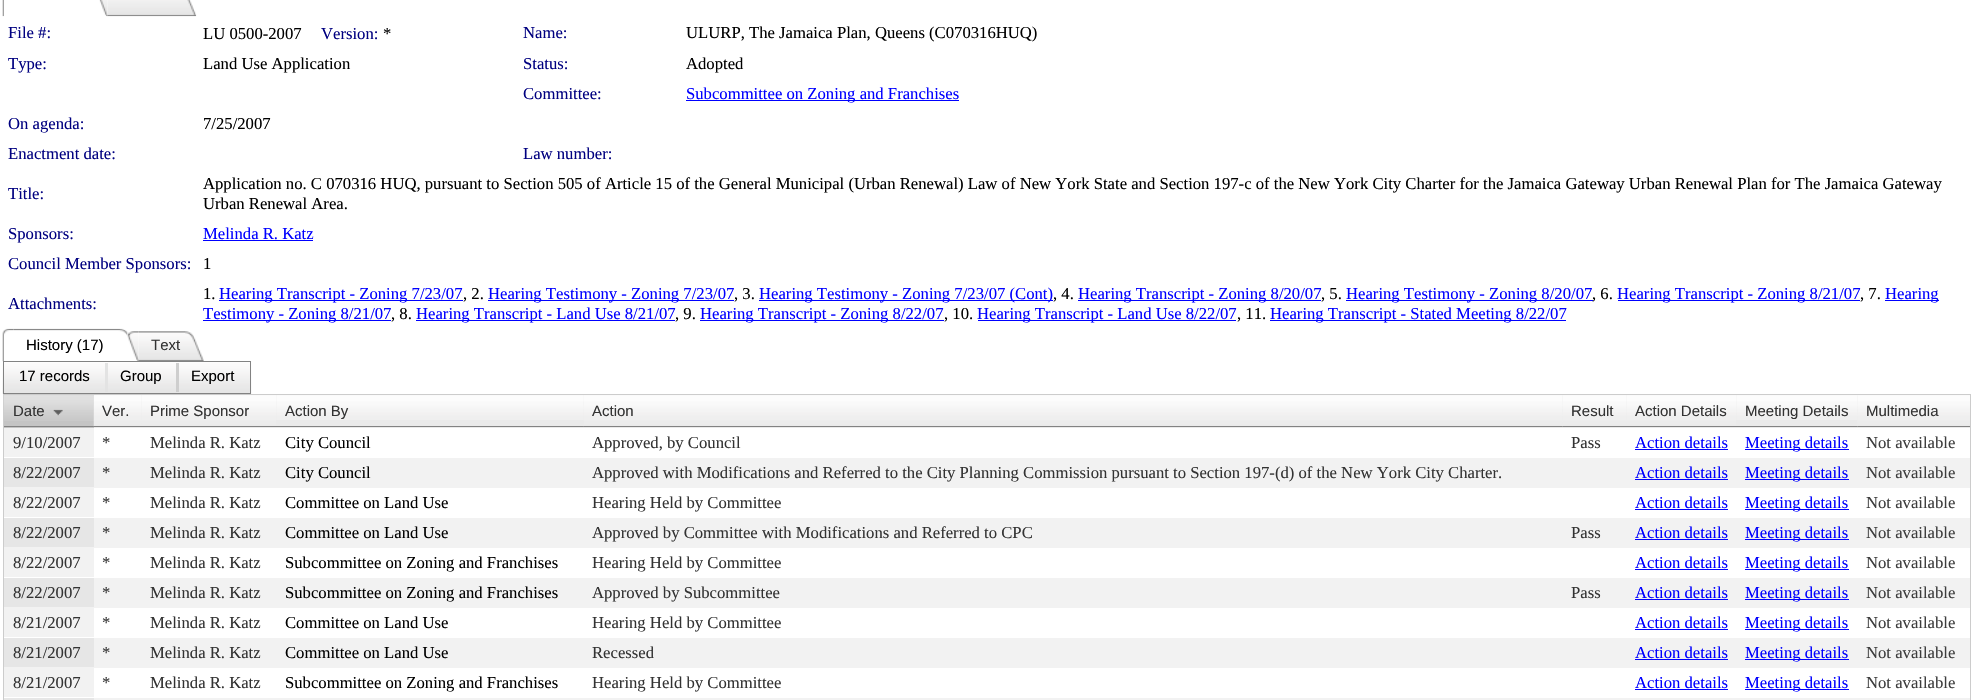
void draw(SkCanvas* canvas) {
    SkPaint paint;
    paint.setAntiAlias(true);
    canvas->clear(0xFFFFFFFF);
    canvas->drawImageRect(SkImages::DeferredFromEncodedData(SkData::MakeFromFileName("img1.png")), SkRect::MakeXYWH(2, 0, 2, 17), SkSamplingOptions());
    canvas->drawImageRect(SkImages::DeferredFromEncodedData(SkData::MakeFromFileName("img2.png")), SkRect::MakeXYWH(99, 0, 9, 17), SkSamplingOptions());
    canvas->drawImageRect(SkImages::DeferredFromEncodedData(SkData::MakeFromFileName("img3.png")), SkRect::MakeXYWH(107, 0, 90, 17), SkSamplingOptions());
    SkFont font1(fontMgr->matchFamilyStyle("Liberation Serif", SkFontStyle::Normal()), 16.67f);
    font1.setSubpixel(true);
    paint.setColor(0xFF000080);
    canvas->drawString("File #:", 8, 38, font1, paint);
    paint.setColor(0xFF000000);
    canvas->drawString("LU 0500-2007", 203, 39, font1, paint);
    paint.setColor(0xFF000080);
    canvas->drawString("Version:", 321, 39, font1, paint);
    paint.setColor(0xFF000000);
    canvas->drawString("*", 383, 39, font1, paint);
    paint.setColor(0xFF000080);
    canvas->drawString("Name:", 523, 38, font1, paint);
    paint.setColor(0xFF000000);
    canvas->drawString("ULURP, The Jamaica Plan, Queens (C070316HUQ)", 686, 38, font1, paint);
    paint.setColor(0xFF000080);
    canvas->drawString("Type:", 8, 69, font1, paint);
    paint.setColor(0xFF000000);
    canvas->drawString("Land Use Application", 203, 69, font1, paint);
    paint.setColor(0xFF000080);
    canvas->drawString("Status:", 523, 69, font1, paint);
    paint.setColor(0xFF000000);
    canvas->drawString("Adopted", 686, 69, font1, paint);
    paint.setColor(0xFF000080);
    canvas->drawString("Committee:", 523, 99, font1, paint);
    paint.setColor(0xFF0000FF);
    canvas->drawRect(SkRect::MakeXYWH(686, 100, 273, 1), paint);
    canvas->drawString("Subcommittee on Zoning and Franchises", 686, 99, font1, paint);
    paint.setColor(0xFF000080);
    canvas->drawString("On agenda:", 8, 129, font1, paint);
    paint.setColor(0xFF000000);
    canvas->drawString("7/25/2007", 203, 129, font1, paint);
    paint.setColor(0xFF000080);
    canvas->drawString("Enactment date:", 8, 159, font1, paint);
    canvas->drawString("Law number:", 523, 159, font1, paint);
    canvas->drawString("Title:", 8, 199, font1, paint);
    paint.setColor(0xFF000000);
    canvas->drawString("Application no. C 070316 HUQ, pursuant to Section 505 of Article 15 of the General Municipal (Urban Renewal) Law of New York State and Section 197-c of the New York City Charter for the Jamaica Gateway Urban Renewal Plan for The Jamaica Gateway", 203, 189, font1, paint);
    canvas->drawString("Urban Renewal Area.", 203, 209, font1, paint);
    paint.setColor(0xFF000080);
    canvas->drawString("Sponsors:", 8, 239, font1, paint);
    paint.setColor(0xFF0000FF);
    canvas->drawString("Melinda R. Katz", 203, 239, font1, paint);
    canvas->drawRect(SkRect::MakeXYWH(203, 240, 110, 1), paint);
    paint.setColor(0xFF000080);
    canvas->drawString("Council Member Sponsors:", 8, 269, font1, paint);
    paint.setColor(0xFF000000);
    canvas->drawString("1", 203, 269, font1, paint);
    paint.setColor(0xFF000080);
    canvas->drawString("Attachments:", 8, 309, font1, paint);
    paint.setColor(0xFF000000);
    canvas->drawString("1.", 203, 299, font1, paint);
    paint.setColor(0xFF0000FF);
    canvas->drawRect(SkRect::MakeXYWH(219, 300, 244, 1), paint);
    canvas->drawString("Hearing Transcript - Zoning 7/23/07", 219, 299, font1, paint);
    paint.setColor(0xFF000000);
    canvas->drawString(", 2.", 463, 299, font1, paint);
    paint.setColor(0xFF0000FF);
    canvas->drawRect(SkRect::MakeXYWH(488, 300, 246, 1), paint);
    canvas->drawString("Hearing Testimony - Zoning 7/23/07", 488, 299, font1, paint);
    paint.setColor(0xFF000000);
    canvas->drawString(", 3.", 734, 299, font1, paint);
    paint.setColor(0xFF0000FF);
    canvas->drawRect(SkRect::MakeXYWH(759, 300, 294, 1), paint);
    canvas->drawString("Hearing Testimony - Zoning 7/23/07 (Cont)", 759, 299, font1, paint);
    paint.setColor(0xFF000000);
    canvas->drawString(", 4.", 1053, 299, font1, paint);
    paint.setColor(0xFF0000FF);
    canvas->drawRect(SkRect::MakeXYWH(1078, 300, 243, 1), paint);
    canvas->drawString("Hearing Transcript - Zoning 8/20/07", 1078, 299, font1, paint);
    paint.setColor(0xFF000000);
    canvas->drawString(", 5.", 1321, 299, font1, paint);
    paint.setColor(0xFF0000FF);
    canvas->drawRect(SkRect::MakeXYWH(1346, 300, 247, 1), paint);
    canvas->drawString("Hearing Testimony - Zoning 8/20/07", 1346, 299, font1, paint);
    paint.setColor(0xFF000000);
    canvas->drawString(", 6.", 1592, 299, font1, paint);
    paint.setColor(0xFF0000FF);
    canvas->drawRect(SkRect::MakeXYWH(1618, 300, 242, 1), paint);
    canvas->drawString("Hearing Transcript - Zoning 8/21/07", 1617, 299, font1, paint);
    paint.setColor(0xFF000000);
    canvas->drawString(", 7.", 1860, 299, font1, paint);
    paint.setColor(0xFF0000FF);
    canvas->drawRect(SkRect::MakeXYWH(1885, 300, 54, 1), paint);
    canvas->drawString("Hearing", 1885, 299, font1, paint);
    canvas->drawRect(SkRect::MakeXYWH(203, 320, 188, 1), paint);
    canvas->drawString("Testimony - Zoning 8/21/07", 203, 319, font1, paint);
    paint.setColor(0xFF000000);
    canvas->drawString(", 8.", 391, 319, font1, paint);
    paint.setColor(0xFF0000FF);
    canvas->drawRect(SkRect::MakeXYWH(416, 320, 259, 1), paint);
    canvas->drawString("Hearing Transcript - Land Use 8/21/07", 416, 319, font1, paint);
    paint.setColor(0xFF000000);
    canvas->drawString(", 9.", 675, 319, font1, paint);
    paint.setColor(0xFF0000FF);
    canvas->drawRect(SkRect::MakeXYWH(700, 320, 244, 1), paint);
    canvas->drawString("Hearing Transcript - Zoning 8/22/07", 700, 319, font1, paint);
    paint.setColor(0xFF000000);
    canvas->drawString(", 10.", 944, 319, font1, paint);
    paint.setColor(0xFF0000FF);
    canvas->drawRect(SkRect::MakeXYWH(978, 320, 258, 1), paint);
    canvas->drawString("Hearing Transcript - Land Use 8/22/07", 977, 319, font1, paint);
    paint.setColor(0xFF000000);
    canvas->drawString(", 11.", 1237, 319, font1, paint);
    paint.setColor(0xFF0000FF);
    canvas->drawRect(SkRect::MakeXYWH(1270, 320, 296, 1), paint);
    canvas->drawString("Hearing Transcript - Stated Meeting 8/22/07", 1270, 319, font1, paint);
    canvas->drawImageRect(SkImages::DeferredFromEncodedData(SkData::MakeFromFileName("img4.png")), SkRect::MakeXYWH(2, 328, 12, 33), SkSamplingOptions());
    canvas->drawImageRect(SkImages::DeferredFromEncodedData(SkData::MakeFromFileName("img5.png")), SkRect::MakeXYWH(13, 328, 115, 8), SkSamplingOptions());
    SkFont font2(fontMgr->matchFamilyStyle("Liberation Sans", SkFontStyle::Normal()), 15);
    font2.setSubpixel(true);
    paint.setColor(0xFF000000);
    canvas->drawString("History (17)", 26, 350, font2, paint);
    canvas->drawImageRect(SkImages::DeferredFromEncodedData(SkData::MakeFromFileName("img6.png")), SkRect::MakeXYWH(127, 331, 12, 30), SkSamplingOptions());
    canvas->drawImageRect(SkImages::DeferredFromEncodedData(SkData::MakeFromFileName("img7.png")), SkRect::MakeXYWH(138, 331, 66, 30), SkSamplingOptions());
    paint.setColor(0xFF333333);
    canvas->drawString("Text", 151, 350, font2, paint);
    canvas->drawImageRect(SkImages::DeferredFromEncodedData(SkData::MakeFromFileName("img8.png")), SkRect::MakeXYWH(2, 361, 250, 33), SkSamplingOptions());
    paint.setStyle(SkPaint::kStroke_Style);
    paint.setStrokeWidth(1);
    paint.setColor(0xFF828282);
    canvas->drawRect(SkRect::MakeXYWH(3.5f, 361.5f, 247, 32), paint);
    paint.setStyle(SkPaint::kFill_Style);
    paint.setColor(0xFF000000);
    canvas->drawString("17 records", 19, 381, font2, paint);
    paint.setColor(0xFFE3E3E3);
    canvas->drawRect(SkRect::MakeXYWH(105, 363, 3, 29), paint);
    paint.setColor(0xFF000000);
    canvas->drawString("Group", 120, 381, font2, paint);
    paint.setColor(0xFFCECECE);
    canvas->drawRect(SkRect::MakeXYWH(176, 363, 3, 29), paint);
    paint.setColor(0xFF000000);
    canvas->drawString("Export", 191, 381, font2, paint);
    paint.setStyle(SkPaint::kStroke_Style);
    paint.setColor(0xFFCCCCCC);
    canvas->drawRect(SkRect::MakeXYWH(3.5f, 394.5f, 1967, 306), paint);
    paint.setStyle(SkPaint::kFill_Style);
    paint.setColor(0xFFC4C4C4);
    canvas->drawRect(SkRect::MakeXYWH(4, 395, 90, 33), paint);
    canvas->drawImageRect(SkImages::DeferredFromEncodedData(SkData::MakeFromFileName("img9.png")), SkRect::MakeXYWH(3, 395, 91, 26), SkSamplingOptions());
    paint.setColor(0xFF828282);
    canvas->drawRect(SkRect::MakeXYWH(4, 426, 90, 1), paint);
    paint.setColor(0xFF333333);
    canvas->drawString("Date", 13, 416, font2, paint);
    canvas->drawImageRect(SkImages::DeferredFromEncodedData(SkData::MakeFromFileName("img10.png")), SkRect::MakeXYWH(53, 409, 10, 7), SkSamplingOptions());
    paint.setColor(0xFFEAEAEA);
    canvas->drawRect(SkRect::MakeXYWH(94, 395, 1876, 33), paint);
    canvas->drawImageRect(SkImages::DeferredFromEncodedData(SkData::MakeFromFileName("img11.png")), SkRect::MakeXYWH(93, 395, 48, 32), SkSamplingOptions());
    paint.setColor(0xFF828282);
    canvas->drawRect(SkRect::MakeXYWH(94, 426, 490, 1), paint);
    paint.setColor(0xFF333333);
    canvas->drawString("Ver.", 102, 416, font2, paint);
    canvas->drawImageRect(SkImages::DeferredFromEncodedData(SkData::MakeFromFileName("img12.png")), SkRect::MakeXYWH(141, 395, 135, 31), SkSamplingOptions());
    canvas->drawString("Prime Sponsor", 150, 416, font2, paint);
    canvas->drawImageRect(SkImages::DeferredFromEncodedData(SkData::MakeFromFileName("img13.png")), SkRect::MakeXYWH(276, 395, 308, 25), SkSamplingOptions());
    canvas->drawString("Action By", 285, 416, font2, paint);
    canvas->drawImageRect(SkImages::DeferredFromEncodedData(SkData::MakeFromFileName("img14.png")), SkRect::MakeXYWH(583, 395, 980, 32), SkSamplingOptions());
    paint.setColor(0xFF828282);
    canvas->drawRect(SkRect::MakeXYWH(584, 426, 979, 1), paint);
    paint.setColor(0xFF333333);
    canvas->drawString("Action", 592, 416, font2, paint);
    canvas->drawImageRect(SkImages::DeferredFromEncodedData(SkData::MakeFromFileName("img15.png")), SkRect::MakeXYWH(1562, 395, 64, 32), SkSamplingOptions());
    paint.setColor(0xFF828282);
    canvas->drawRect(SkRect::MakeXYWH(1563, 426, 295, 1), paint);
    paint.setColor(0xFF333333);
    canvas->drawString("Result", 1571, 416, font2, paint);
    canvas->drawImageRect(SkImages::DeferredFromEncodedData(SkData::MakeFromFileName("img16.png")), SkRect::MakeXYWH(1626, 395, 110, 31), SkSamplingOptions());
    canvas->drawString("Action Details", 1635, 416, font2, paint);
    canvas->drawImageRect(SkImages::DeferredFromEncodedData(SkData::MakeFromFileName("img17.png")), SkRect::MakeXYWH(1736, 395, 122, 25), SkSamplingOptions());
    canvas->drawString("Meeting Details", 1745, 416, font2, paint);
    canvas->drawImageRect(SkImages::DeferredFromEncodedData(SkData::MakeFromFileName("img18.png")), SkRect::MakeXYWH(1857, 395, 113, 32), SkSamplingOptions());
    paint.setColor(0xFF828282);
    canvas->drawRect(SkRect::MakeXYWH(1858, 426, 112, 1), paint);
    paint.setColor(0xFF333333);
    canvas->drawString("Multimedia", 1866, 416, font2, paint);
    paint.setColor(0xFFF2F2F2);
    canvas->drawRect(SkRect::MakeXYWH(4, 428, 90, 29), paint);
    paint.setColor(0xFF333333);
    canvas->drawString("9/10/2007", 13, 448, font1, paint);
    canvas->drawString("*", 102, 448, font1, paint);
    canvas->drawString("Melinda R. Katz", 150, 448, font1, paint);
    paint.setColor(0xFF000000);
    canvas->drawString("City Council", 285, 448, font1, paint);
    paint.setColor(0xFF333333);
    canvas->drawString("Approved, by Council", 592, 448, font1, paint);
    canvas->drawString("Pass", 1571, 448, font1, paint);
    paint.setColor(0xFF0000FF);
    canvas->drawString("Action details", 1635, 448, font1, paint);
    canvas->drawRect(SkRect::MakeXYWH(1635, 449, 93, 1), paint);
    canvas->drawRect(SkRect::MakeXYWH(1745, 449, 104, 1), paint);
    canvas->drawString("Meeting details", 1745, 448, font1, paint);
    paint.setColor(0xFF3D3D3D);
    canvas->drawString("Not available", 1866, 448, font1, paint);
    paint.setColor(0xFFF2F2F2);
    canvas->drawRect(SkRect::MakeXYWH(4, 458, 1966, 30), paint);
    paint.setColor(0xFFE6E6E6);
    canvas->drawRect(SkRect::MakeXYWH(4, 458, 90, 29), paint);
    paint.setColor(0xFF333333);
    canvas->drawString("8/22/2007", 13, 478, font1, paint);
    canvas->drawString("*", 102, 478, font1, paint);
    canvas->drawString("Melinda R. Katz", 150, 478, font1, paint);
    paint.setColor(0xFF000000);
    canvas->drawString("City Council", 285, 478, font1, paint);
    paint.setColor(0xFF333333);
    canvas->drawString("Approved with Modifications and Referred to the City Planning Commission pursuant to Section 197-(d) of the New York City Charter.", 592, 478, font1, paint);
    paint.setColor(0xFF0000FF);
    canvas->drawString("Action details", 1635, 478, font1, paint);
    canvas->drawRect(SkRect::MakeXYWH(1635, 479, 93, 1), paint);
    canvas->drawRect(SkRect::MakeXYWH(1745, 479, 104, 1), paint);
    canvas->drawString("Meeting details", 1745, 478, font1, paint);
    paint.setColor(0xFF3D3D3D);
    canvas->drawString("Not available", 1866, 478, font1, paint);
    paint.setColor(0xFFF2F2F2);
    canvas->drawRect(SkRect::MakeXYWH(4, 488, 90, 29), paint);
    paint.setColor(0xFF333333);
    canvas->drawString("8/22/2007", 13, 508, font1, paint);
    canvas->drawString("*", 102, 508, font1, paint);
    canvas->drawString("Melinda R. Katz", 150, 508, font1, paint);
    paint.setColor(0xFF000000);
    canvas->drawString("Committee on Land Use", 285, 508, font1, paint);
    paint.setColor(0xFF333333);
    canvas->drawString("Hearing Held by Committee", 592, 508, font1, paint);
    paint.setColor(0xFF0000FF);
    canvas->drawString("Action details", 1635, 508, font1, paint);
    canvas->drawRect(SkRect::MakeXYWH(1635, 509, 93, 1), paint);
    canvas->drawRect(SkRect::MakeXYWH(1745, 509, 104, 1), paint);
    canvas->drawString("Meeting details", 1745, 508, font1, paint);
    paint.setColor(0xFF3D3D3D);
    canvas->drawString("Not available", 1866, 508, font1, paint);
    paint.setColor(0xFFF2F2F2);
    canvas->drawRect(SkRect::MakeXYWH(4, 518, 1966, 30), paint);
    paint.setColor(0xFFE6E6E6);
    canvas->drawRect(SkRect::MakeXYWH(4, 518, 90, 29), paint);
    paint.setColor(0xFF333333);
    canvas->drawString("8/22/2007", 13, 538, font1, paint);
    canvas->drawString("*", 102, 538, font1, paint);
    canvas->drawString("Melinda R. Katz", 150, 538, font1, paint);
    paint.setColor(0xFF000000);
    canvas->drawString("Committee on Land Use", 285, 538, font1, paint);
    paint.setColor(0xFF333333);
    canvas->drawString("Approved by Committee with Modifications and Referred to CPC", 592, 538, font1, paint);
    canvas->drawString("Pass", 1571, 538, font1, paint);
    paint.setColor(0xFF0000FF);
    canvas->drawString("Action details", 1635, 538, font1, paint);
    canvas->drawRect(SkRect::MakeXYWH(1635, 539, 93, 1), paint);
    canvas->drawRect(SkRect::MakeXYWH(1745, 539, 104, 1), paint);
    canvas->drawString("Meeting details", 1745, 538, font1, paint);
    paint.setColor(0xFF3D3D3D);
    canvas->drawString("Not available", 1866, 538, font1, paint);
    paint.setColor(0xFFF2F2F2);
    canvas->drawRect(SkRect::MakeXYWH(4, 548, 90, 29), paint);
    paint.setColor(0xFF333333);
    canvas->drawString("8/22/2007", 13, 568, font1, paint);
    canvas->drawString("*", 102, 568, font1, paint);
    canvas->drawString("Melinda R. Katz", 150, 568, font1, paint);
    paint.setColor(0xFF000000);
    canvas->drawString("Subcommittee on Zoning and Franchises", 285, 568, font1, paint);
    paint.setColor(0xFF333333);
    canvas->drawString("Hearing Held by Committee", 592, 568, font1, paint);
    paint.setColor(0xFF0000FF);
    canvas->drawString("Action details", 1635, 568, font1, paint);
    canvas->drawRect(SkRect::MakeXYWH(1635, 569, 93, 1), paint);
    canvas->drawRect(SkRect::MakeXYWH(1745, 569, 104, 1), paint);
    canvas->drawString("Meeting details", 1745, 568, font1, paint);
    paint.setColor(0xFF3D3D3D);
    canvas->drawString("Not available", 1866, 568, font1, paint);
    paint.setColor(0xFFF2F2F2);
    canvas->drawRect(SkRect::MakeXYWH(4, 578, 1966, 30), paint);
    paint.setColor(0xFFE6E6E6);
    canvas->drawRect(SkRect::MakeXYWH(4, 578, 90, 29), paint);
    paint.setColor(0xFF333333);
    canvas->drawString("8/22/2007", 13, 598, font1, paint);
    canvas->drawString("*", 102, 598, font1, paint);
    canvas->drawString("Melinda R. Katz", 150, 598, font1, paint);
    paint.setColor(0xFF000000);
    canvas->drawString("Subcommittee on Zoning and Franchises", 285, 598, font1, paint);
    paint.setColor(0xFF333333);
    canvas->drawString("Approved by Subcommittee", 592, 598, font1, paint);
    canvas->drawString("Pass", 1571, 598, font1, paint);
    paint.setColor(0xFF0000FF);
    canvas->drawString("Action details", 1635, 598, font1, paint);
    canvas->drawRect(SkRect::MakeXYWH(1635, 599, 93, 1), paint);
    canvas->drawRect(SkRect::MakeXYWH(1745, 599, 104, 1), paint);
    canvas->drawString("Meeting details", 1745, 598, font1, paint);
    paint.setColor(0xFF3D3D3D);
    canvas->drawString("Not available", 1866, 598, font1, paint);
    paint.setColor(0xFFF2F2F2);
    canvas->drawRect(SkRect::MakeXYWH(4, 608, 90, 29), paint);
    paint.setColor(0xFF333333);
    canvas->drawString("8/21/2007", 13, 628, font1, paint);
    canvas->drawString("*", 102, 628, font1, paint);
    canvas->drawString("Melinda R. Katz", 150, 628, font1, paint);
    paint.setColor(0xFF000000);
    canvas->drawString("Committee on Land Use", 285, 628, font1, paint);
    paint.setColor(0xFF333333);
    canvas->drawString("Hearing Held by Committee", 592, 628, font1, paint);
    paint.setColor(0xFF0000FF);
    canvas->drawString("Action details", 1635, 628, font1, paint);
    canvas->drawRect(SkRect::MakeXYWH(1635, 629, 93, 1), paint);
    canvas->drawRect(SkRect::MakeXYWH(1745, 629, 104, 1), paint);
    canvas->drawString("Meeting details", 1745, 628, font1, paint);
    paint.setColor(0xFF3D3D3D);
    canvas->drawString("Not available", 1866, 628, font1, paint);
    paint.setColor(0xFFF2F2F2);
    canvas->drawRect(SkRect::MakeXYWH(4, 638, 1966, 30), paint);
    paint.setColor(0xFFE6E6E6);
    canvas->drawRect(SkRect::MakeXYWH(4, 638, 90, 29), paint);
    paint.setColor(0xFF333333);
    canvas->drawString("8/21/2007", 13, 658, font1, paint);
    canvas->drawString("*", 102, 658, font1, paint);
    canvas->drawString("Melinda R. Katz", 150, 658, font1, paint);
    paint.setColor(0xFF000000);
    canvas->drawString("Committee on Land Use", 285, 658, font1, paint);
    paint.setColor(0xFF333333);
    canvas->drawString("Recessed", 592, 658, font1, paint);
    paint.setColor(0xFF0000FF);
    canvas->drawString("Action details", 1635, 658, font1, paint);
    canvas->drawRect(SkRect::MakeXYWH(1635, 659, 93, 1), paint);
    canvas->drawRect(SkRect::MakeXYWH(1745, 659, 104, 1), paint);
    canvas->drawString("Meeting details", 1745, 658, font1, paint);
    paint.setColor(0xFF3D3D3D);
    canvas->drawString("Not available", 1866, 658, font1, paint);
    paint.setColor(0xFFF2F2F2);
    canvas->drawRect(SkRect::MakeXYWH(4, 668, 90, 29), paint);
    paint.setColor(0xFF333333);
    canvas->drawString("8/21/2007", 13, 688, font1, paint);
    canvas->drawString("*", 102, 688, font1, paint);
    canvas->drawString("Melinda R. Katz", 150, 688, font1, paint);
    paint.setColor(0xFF000000);
    canvas->drawString("Subcommittee on Zoning and Franchises", 285, 688, font1, paint);
    paint.setColor(0xFF333333);
    canvas->drawString("Hearing Held by Committee", 592, 688, font1, paint);
    paint.setColor(0xFF0000FF);
    canvas->drawString("Action details", 1635, 688, font1, paint);
    canvas->drawRect(SkRect::MakeXYWH(1635, 689, 93, 1), paint);
    canvas->drawRect(SkRect::MakeXYWH(1745, 689, 104, 1), paint);
    canvas->drawString("Meeting details", 1745, 688, font1, paint);
    paint.setColor(0xFF3D3D3D);
    canvas->drawString("Not available", 1866, 688, font1, paint);
    paint.setColor(0xFFF2F2F2);
    canvas->drawRect(SkRect::MakeXYWH(94, 698, 1876, 2), paint);
    paint.setColor(0xFFE6E6E6);
    canvas->drawRect(SkRect::MakeXYWH(4, 698, 90, 2), paint);
}
